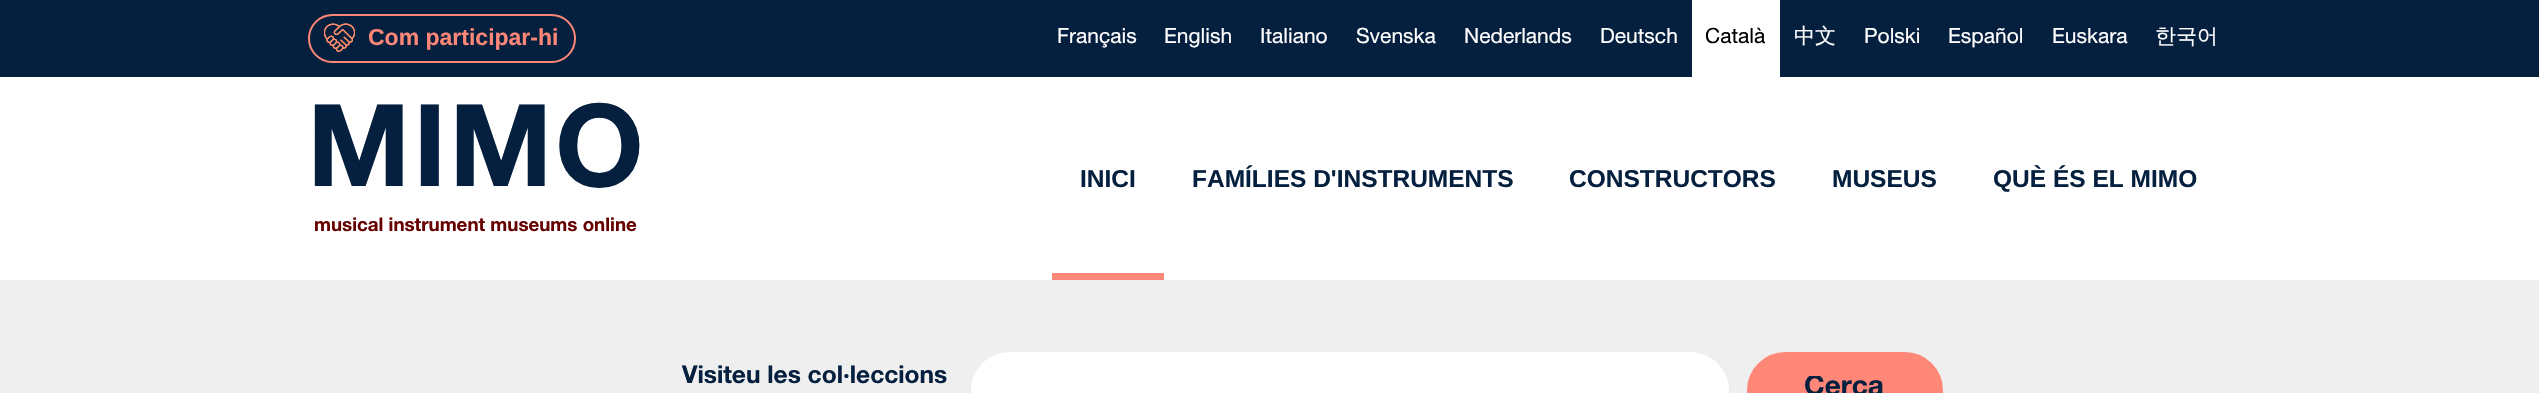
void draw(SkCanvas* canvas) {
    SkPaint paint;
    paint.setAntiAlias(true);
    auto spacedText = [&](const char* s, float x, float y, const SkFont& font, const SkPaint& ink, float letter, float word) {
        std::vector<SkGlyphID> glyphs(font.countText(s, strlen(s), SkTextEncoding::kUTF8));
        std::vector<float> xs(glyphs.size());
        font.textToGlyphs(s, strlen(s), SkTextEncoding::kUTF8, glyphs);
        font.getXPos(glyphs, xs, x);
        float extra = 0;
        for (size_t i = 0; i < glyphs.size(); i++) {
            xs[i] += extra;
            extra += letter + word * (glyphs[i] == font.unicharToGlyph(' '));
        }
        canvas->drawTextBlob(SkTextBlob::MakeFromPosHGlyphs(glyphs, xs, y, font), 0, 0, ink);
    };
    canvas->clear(0xFFEFEFEF);
    paint.setColor(0xFF051F3E);
    canvas->drawRect(SkRect::MakeXYWH(0, 0, 2539, 77), paint);
    paint.setStyle(SkPaint::kStroke_Style);
    paint.setStrokeWidth(2);
    paint.setColor(0xFFFF8777);
    canvas->drawRoundRect(SkRect::MakeXYWH(309, 15, 266, 47), 23.5f, 23.5f, paint);
    canvas->drawImageRect(SkImages::DeferredFromEncodedData(SkData::MakeFromFileName("img1.png")), SkRect::MakeXYWH(324, 23, 31, 29), SkSamplingOptions());
    SkFont font1(fontMgr->matchFamilyStyle("Liberation Sans", SkFontStyle::Bold()), 23);
    font1.setSubpixel(true);
    paint.setStyle(SkPaint::kFill_Style);
    canvas->drawString("Com participar-hi", 368, 45, font1, paint);
    SkFont font2(fontMgr->matchFamilyStyle("Helvetica Neue", SkFontStyle::Normal()), 21);
    font2.setSubpixel(true);
    paint.setColor(0xFFFFFFFF);
    canvas->drawString("Français", 1057, 43, font2, paint);
    canvas->drawString("English", 1164, 43, font2, paint);
    canvas->drawString("Italiano", 1260, 43, font2, paint);
    canvas->drawString("Svenska", 1356, 43, font2, paint);
    canvas->drawString("Nederlands", 1464, 43, font2, paint);
    canvas->drawString("Deutsch", 1600, 43, font2, paint);
    canvas->drawRect(SkRect::MakeXYWH(1692, 0, 88, 77), paint);
    paint.setColor(0xFF000000);
    canvas->drawString("Català", 1705, 43, font2, paint);
    SkFont font3(fontMgr->matchFamilyStyle("WenQuanYi Zen Hei", SkFontStyle(500, SkFontStyle::kNormal_Width, SkFontStyle::kUpright_Slant)), 21);
    font3.setSubpixel(true);
    paint.setColor(0xFFFFFFFF);
    canvas->drawString("中文", 1794, 43, font3, paint);
    canvas->drawString("Polski", 1864, 43, font2, paint);
    canvas->drawString("Español", 1948, 43, font2, paint);
    canvas->drawString("Euskara", 2052, 43, font2, paint);
    canvas->drawString("한국어", 2155, 43, font3, paint);
    canvas->drawRect(SkRect::MakeXYWH(0, 77, 2539, 203), paint);
    SkFont font4(fontMgr->matchFamilyStyle("Helvetica Neue", SkFontStyle::Bold()), 114);
    font4.setSubpixel(true);
    paint.setColor(0xFF051F3E);
    spacedText("MIMO", 307, 186, font4, paint, 2.5f, 0);
    SkFont font5(fontMgr->matchFamilyStyle("Helvetica Neue", SkFontStyle::Bold()), 18.75f);
    font5.setSubpixel(true);
    paint.setColor(0xFF660000);
    canvas->drawString("musical instrument museums online", 314, 231, font5, paint);
    SkFont font6(fontMgr->matchFamilyStyle("Liberation Sans", SkFontStyle::Bold()), 24.5f);
    font6.setSubpixel(true);
    paint.setColor(0xFF051F3E);
    canvas->drawString("INICI", 1080, 187, font6, paint);
    paint.setColor(0xFFFF8777);
    canvas->drawRect(SkRect::MakeXYWH(1052, 273, 112, 7), paint);
    paint.setColor(0xFF051F3E);
    canvas->drawString("FAMÍLIES D'INSTRUMENTS", 1192, 187, font6, paint);
    canvas->drawString("CONSTRUCTORS", 1569, 187, font6, paint);
    canvas->drawString("MUSEUS", 1832, 187, font6, paint);
    canvas->drawString("QUÈ ÉS EL MIMO", 1993, 187, font6, paint);
    SkFont font7(fontMgr->matchFamilyStyle("Helvetica Neue", SkFontStyle::Bold()), 24.5f);
    font7.setSubpixel(true);
    canvas->drawString("Visiteu les col·leccions", 682, 383, font7, paint);
    paint.setColor(0xFFFFFFFF);
    canvas->drawRoundRect(SkRect::MakeXYWH(971, 352, 758, 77), 38.5f, 38.5f, paint);
    paint.setColor(0xFFFF8777);
    canvas->drawRoundRect(SkRect::MakeXYWH(1748, 353, 194, 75), 37.5f, 37.5f, paint);
    paint.setStyle(SkPaint::kStroke_Style);
    canvas->drawRoundRect(SkRect::MakeXYWH(1748, 353, 194, 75), 37.5f, 37.5f, paint);
    canvas->save();
    canvas->clipRect(SkRect::MakeXYWH(1804, 376, 81, 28));
    SkFont font8(fontMgr->matchFamilyStyle("Helvetica Neue", SkFontStyle::Bold()), 28);
    font8.setSubpixel(true);
    paint.setStyle(SkPaint::kFill_Style);
    paint.setColor(0xFF051F3E);
    canvas->drawString("Cerca", 1804, 395, font8, paint);
    canvas->restore();
}
